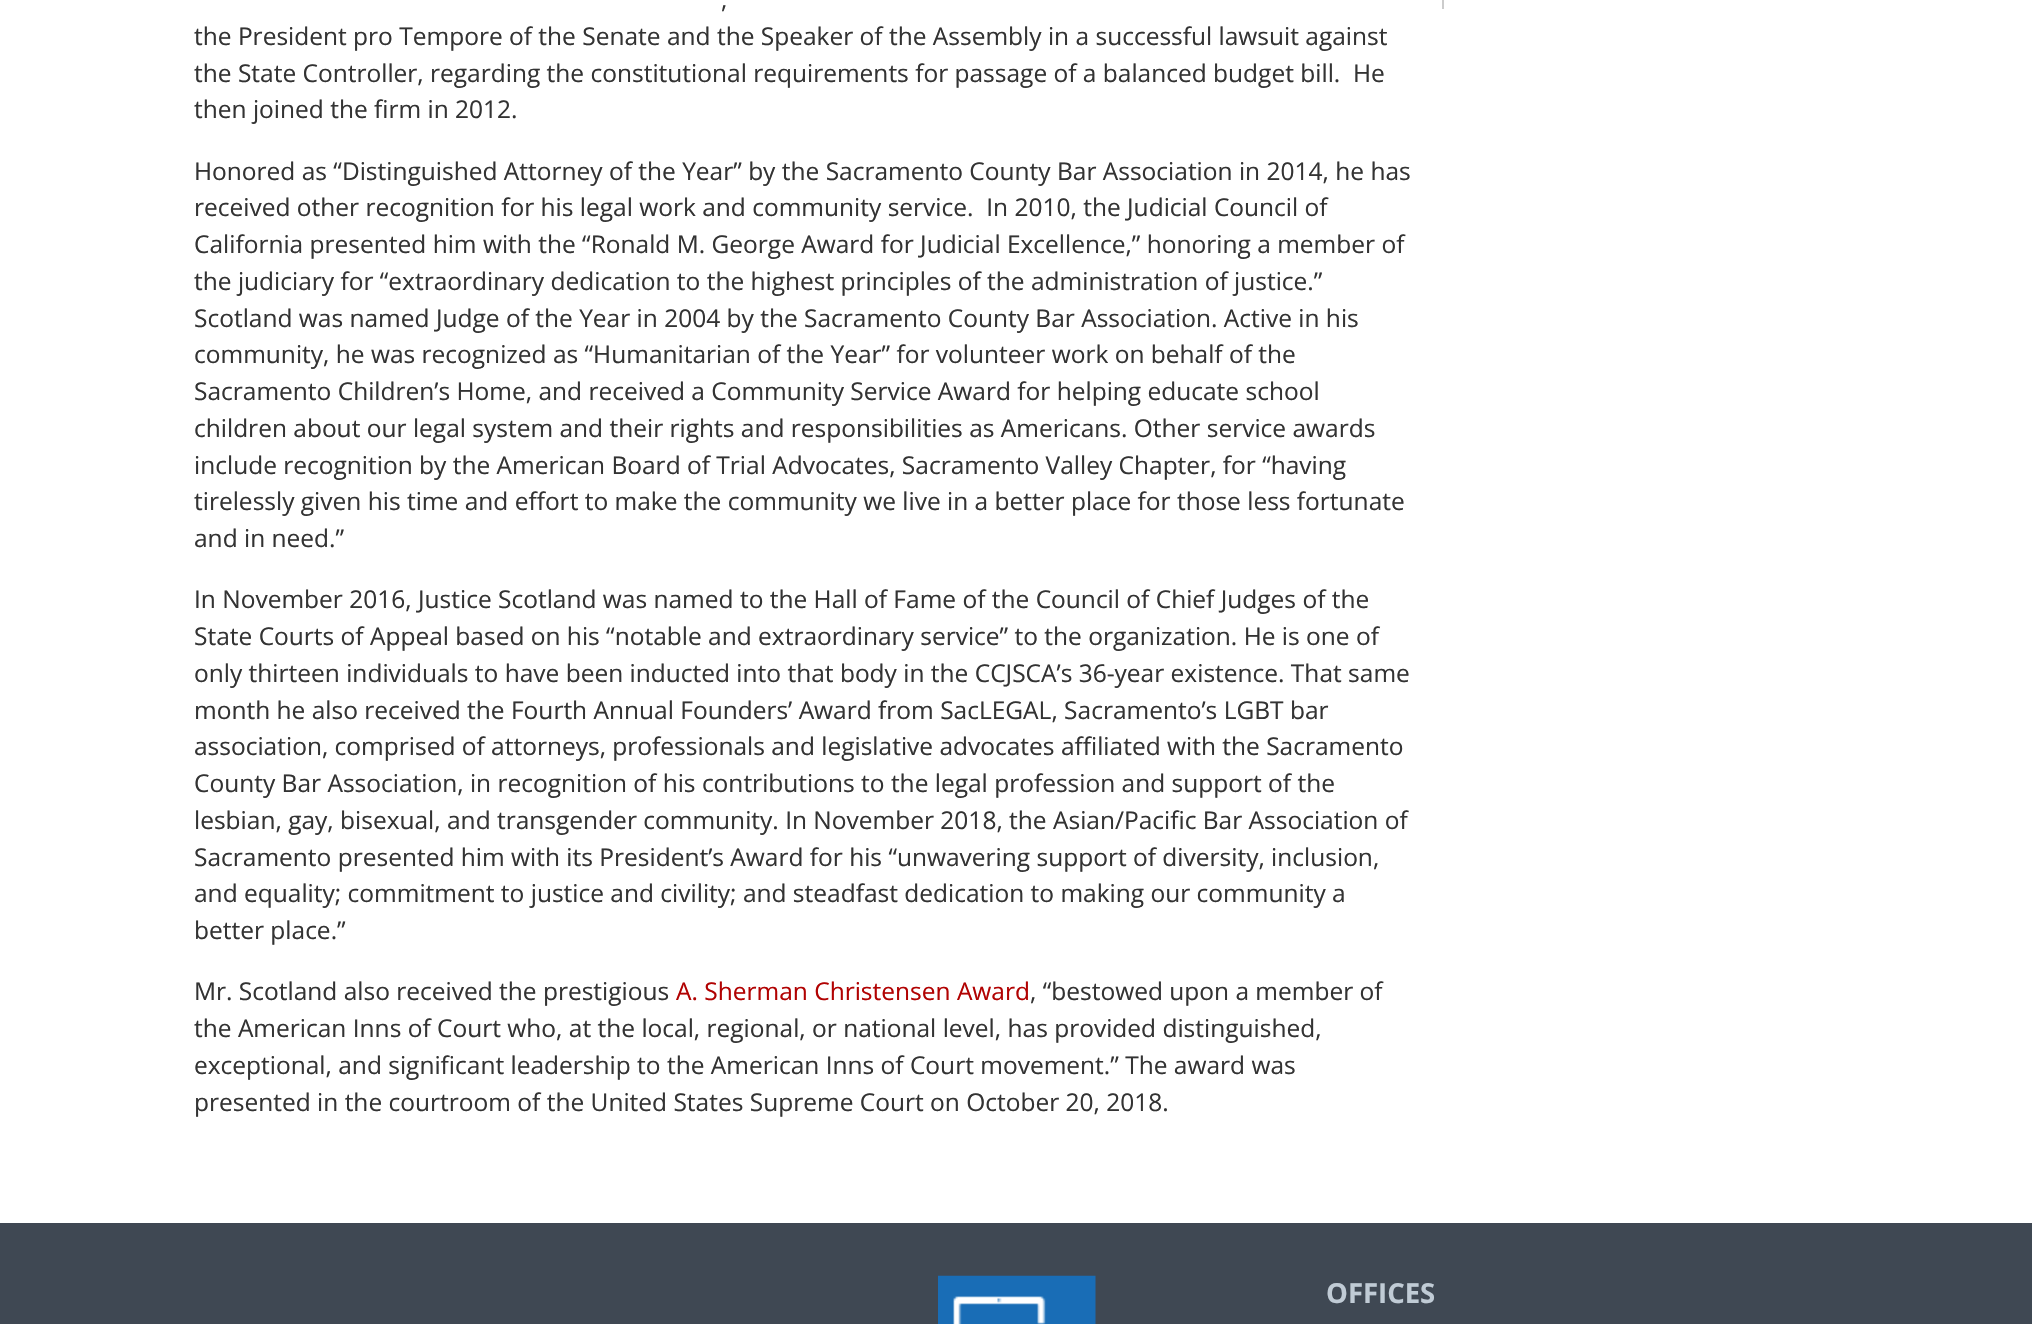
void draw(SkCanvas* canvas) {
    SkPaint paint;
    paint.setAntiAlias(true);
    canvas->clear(0xFFFFFFFF);
    SkFont font1(fontMgr->matchFamilyStyle("Open Sans", SkFontStyle::Normal()), 24.5f);
    font1.setSubpixel(true);
    paint.setColor(0xFF333333);
    canvas->drawString(",", 721, 8, font1, paint);
    canvas->drawString("the President pro Tempore of the Senate and the Speaker of the Assembly in a successful lawsuit against", 194, 45, font1, paint);
    canvas->drawString("the State Controller, regarding the constitutional requirements for passage of a balanced budget bill.  He", 194, 82, font1, paint);
    canvas->drawString("then joined the firm in 2012.", 194, 118, font1, paint);
    canvas->drawString("Honored as “Distinguished Attorney of the Year” by the Sacramento County Bar Association in 2014, he has", 194, 180, font1, paint);
    canvas->drawString("received other recognition for his legal work and community service.  In 2010, the Judicial Council of", 194, 216, font1, paint);
    canvas->drawString("California presented him with the “Ronald M. George Award for Judicial Excellence,” honoring a member of", 194, 253, font1, paint);
    canvas->drawString("the judiciary for “extraordinary dedication to the highest principles of the administration of justice.”", 194, 290, font1, paint);
    canvas->drawString("Scotland was named Judge of the Year in 2004 by the Sacramento County Bar Association. Active in his", 194, 327, font1, paint);
    canvas->drawString("community, he was recognized as “Humanitarian of the Year” for volunteer work on behalf of the", 194, 363, font1, paint);
    canvas->drawString("Sacramento Children’s Home, and received a Community Service Award for helping educate school", 194, 400, font1, paint);
    canvas->drawString("children about our legal system and their rights and responsibilities as Americans. Other service awards", 194, 437, font1, paint);
    canvas->drawString("include recognition by the American Board of Trial Advocates, Sacramento Valley Chapter, for “having", 194, 474, font1, paint);
    canvas->drawString("tirelessly given his time and effort to make the community we live in a better place for those less fortunate", 194, 510, font1, paint);
    canvas->drawString("and in need.”", 194, 547, font1, paint);
    canvas->drawString("In November 2016, Justice Scotland was named to the Hall of Fame of the Council of Chief Judges of the", 194, 608, font1, paint);
    canvas->drawString("State Courts of Appeal based on his “notable and extraordinary service” to the organization. He is one of", 194, 645, font1, paint);
    canvas->drawString("only thirteen individuals to have been inducted into that body in the CCJSCA’s 36-year existence. That same", 194, 682, font1, paint);
    canvas->drawString("month he also received the Fourth Annual Founders’ Award from SacLEGAL, Sacramento’s LGBT bar", 194, 719, font1, paint);
    canvas->drawString("association, comprised of attorneys, professionals and legislative advocates affiliated with the Sacramento", 194, 755, font1, paint);
    canvas->drawString("County Bar Association, in recognition of his contributions to the legal profession and support of the", 194, 792, font1, paint);
    canvas->drawString("lesbian, gay, bisexual, and transgender community. In November 2018, the Asian/Pacific Bar Association of", 194, 829, font1, paint);
    canvas->drawString("Sacramento presented him with its President’s Award for his “unwavering support of diversity, inclusion,", 194, 866, font1, paint);
    canvas->drawString("and equality; commitment to justice and civility; and steadfast dedication to making our community a", 194, 902, font1, paint);
    canvas->drawString("better place.”", 194, 939, font1, paint);
    canvas->drawString("Mr. Scotland also received the prestigious", 194, 1000, font1, paint);
    paint.setColor(0xFFB10202);
    canvas->drawString("A. Sherman Christensen Award", 676, 1000, font1, paint);
    paint.setColor(0xFF333333);
    canvas->drawString(", “bestowed upon a member of", 1030, 1000, font1, paint);
    canvas->drawString("the American Inns of Court who, at the local, regional, or national level, has provided distinguished,", 194, 1037, font1, paint);
    canvas->drawString("exceptional, and significant leadership to the American Inns of Court movement.” The award was", 194, 1074, font1, paint);
    canvas->drawString("presented in the courtroom of the United States Supreme Court on October 20, 2018.", 194, 1111, font1, paint);
    paint.setColor(0xFFCCCCCC);
    canvas->drawRect(SkRect::MakeXYWH(1442, 0, 2, 9), paint);
    paint.setColor(0xFF3F4853);
    canvas->drawRect(SkRect::MakeXYWH(0, 1223, 2032, 101), paint);
    canvas->drawImageRect(SkImages::DeferredFromEncodedData(SkData::MakeFromFileName("img1.png")), SkRect::MakeXYWH(938, 1275, 158, 49), SkSamplingOptions());
    SkFont font2(fontMgr->matchFamilyStyle("Open Sans", SkFontStyle::Bold()), 27.5f);
    font2.setSubpixel(true);
    paint.setColor(0xFFC0CBD5);
    canvas->drawString("OFFICES", 1326, 1303, font2, paint);
}
